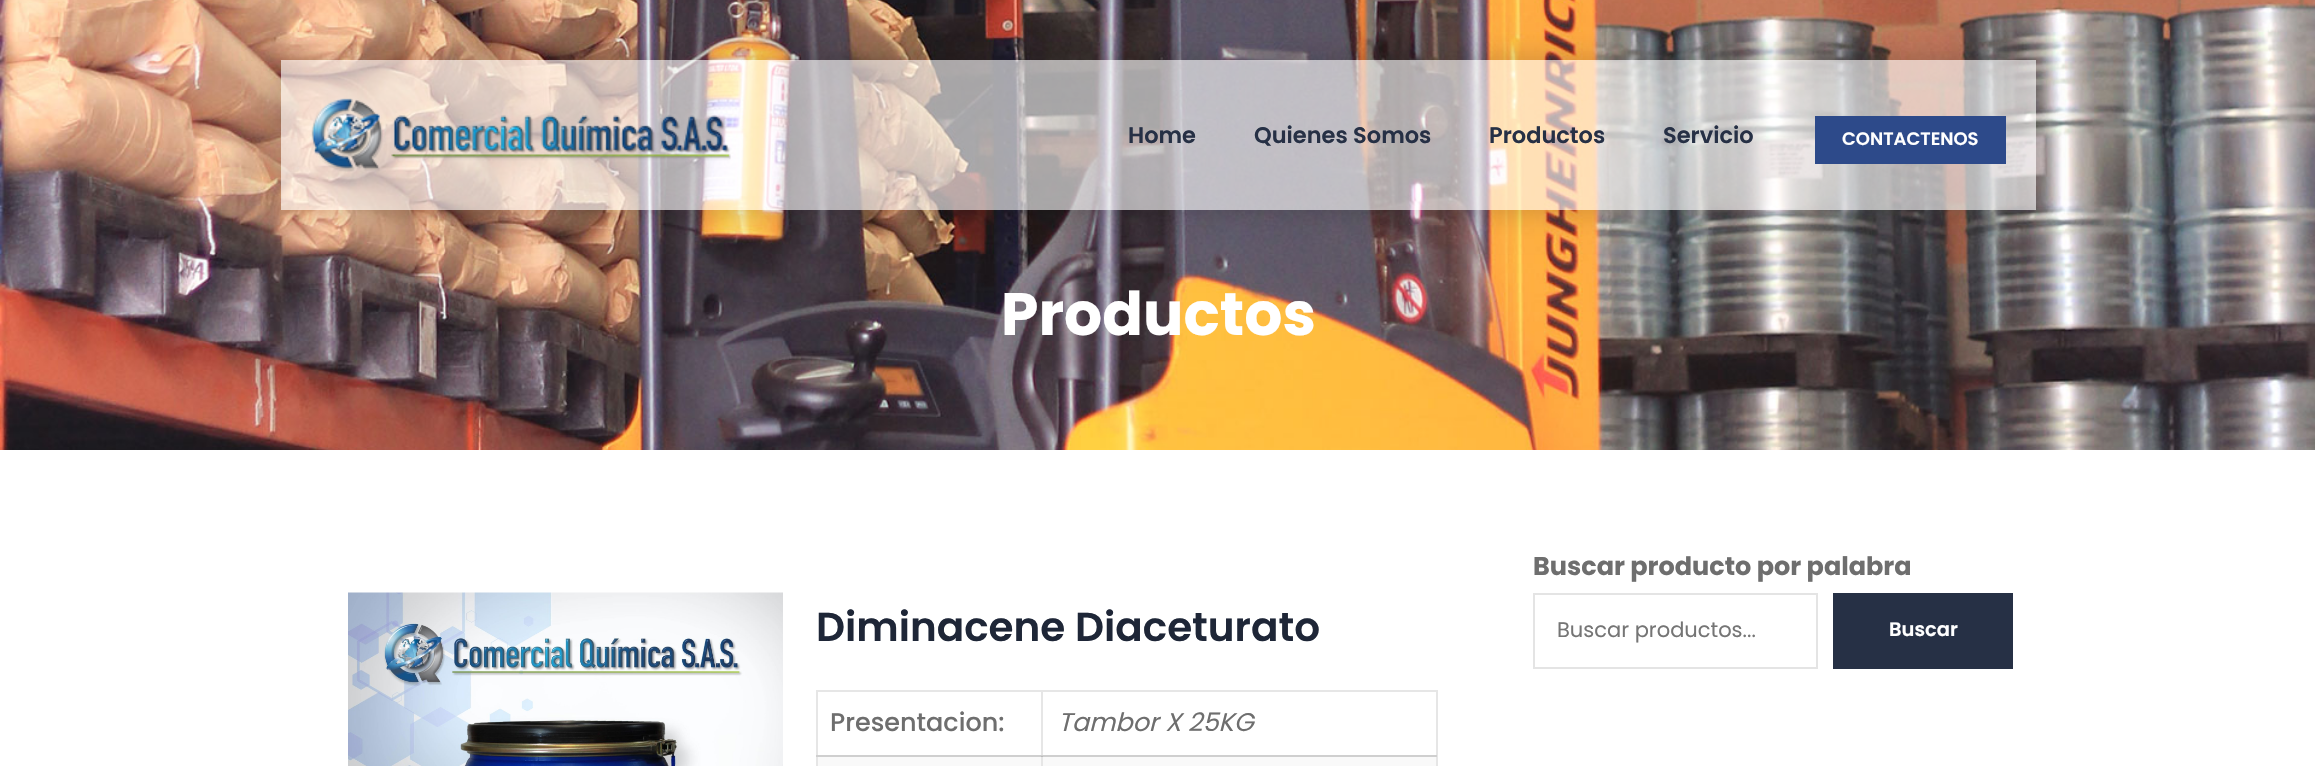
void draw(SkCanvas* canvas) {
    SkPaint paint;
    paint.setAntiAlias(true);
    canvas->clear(0xFFFFFFFF);
    canvas->drawImageRect(SkImages::DeferredFromEncodedData(SkData::MakeFromFileName("img2.png")), SkRect::MakeXYWH(0, 0, 2315, 450), SkSamplingOptions());
    canvas->save();
    canvas->clipPath(SkPathBuilder(SkPathFillType::kEvenOdd).moveTo(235, 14).lineTo(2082, 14).lineTo(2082, 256).lineTo(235, 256).close().moveTo(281, 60).lineTo(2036, 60).lineTo(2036, 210).lineTo(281, 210).close().detach(), true);
    paint.setColor(0x33000000);
    paint.setMaskFilter(SkMaskFilter::MakeBlur(kNormal_SkBlurStyle, 15));
    canvas->drawRect(SkRect::MakeXYWH(281, 60, 1755, 150), paint);
    paint.setMaskFilter(nullptr);
    canvas->restore();
    paint.setColor(0x9CFFFFFF);
    canvas->drawRect(SkRect::MakeXYWH(281, 60, 1755, 150), paint);
    canvas->drawImageRect(SkImages::DeferredFromEncodedData(SkData::MakeFromFileName("img1.png")), SkRect::MakeXYWH(311, 98, 420, 74), SkSamplingOptions());
    SkFont font1(fontMgr->matchFamilyStyle("Poppins", SkFontStyle(600, SkFontStyle::kNormal_Width, SkFontStyle::kUpright_Slant)), 22.5f);
    font1.setSubpixel(true);
    paint.setColor(0xFF263045);
    canvas->drawString("Home", 1128, 143, font1, paint);
    canvas->drawString("Quienes Somos", 1254, 143, font1, paint);
    canvas->drawString("Productos", 1489, 143, font1, paint);
    canvas->drawString("Servicio", 1663, 143, font1, paint);
    paint.setColor(0xFF2D4A8A);
    canvas->drawRect(SkRect::MakeXYWH(1815, 116, 191, 48), paint);
    SkFont font2(fontMgr->matchFamilyStyle("Poppins", SkFontStyle(600, SkFontStyle::kNormal_Width, SkFontStyle::kUpright_Slant)), 18);
    font2.setSubpixel(true);
    paint.setColor(0xFFFFFFFF);
    canvas->drawString("CONTACTENOS", 1842, 145, font2, paint);
    SkFont font3(fontMgr->matchFamilyStyle("Poppins", SkFontStyle::Bold()), 60);
    font3.setSubpixel(true);
    canvas->drawString("Productos", 1001, 335, font3, paint);
    SkFont font4(fontMgr->matchFamilyStyle("Poppins", SkFontStyle::Bold()), 25.5f);
    font4.setSubpixel(true);
    paint.setColor(0xFF6E6E6E);
    canvas->drawString("Buscar producto por palabra", 1533, 575, font4, paint);
    paint.setStyle(SkPaint::kStroke_Style);
    paint.setStrokeWidth(2);
    paint.setColor(0xFFE4E4E4);
    canvas->drawRect(SkRect::MakeXYWH(1534, 594, 283, 74), paint);
    SkFont font5(fontMgr->matchFamilyStyle("Poppins", SkFontStyle::Normal()), 21);
    font5.setSubpixel(true);
    paint.setStyle(SkPaint::kFill_Style);
    paint.setColor(0xFF757575);
    canvas->drawString("Buscar productos...", 1557, 637, font5, paint);
    paint.setColor(0xFF263045);
    canvas->drawRect(SkRect::MakeXYWH(1833, 593, 180, 76), paint);
    SkFont font6(fontMgr->matchFamilyStyle("Poppins", SkFontStyle(600, SkFontStyle::kNormal_Width, SkFontStyle::kUpright_Slant)), 19.5f);
    font6.setSubpixel(true);
    paint.setColor(0xFFFFFFFF);
    canvas->drawString("Buscar", 1889, 636, font6, paint);
    canvas->drawImageRect(SkImages::DeferredFromEncodedData(SkData::MakeFromFileName("img3.png")), SkRect::MakeXYWH(348, 592, 435, 174), SkSamplingOptions());
    SkFont font7(fontMgr->matchFamilyStyle("Poppins", SkFontStyle(600, SkFontStyle::kNormal_Width, SkFontStyle::kUpright_Slant)), 40.5f);
    font7.setSubpixel(true);
    paint.setColor(0xFF1E2637);
    canvas->drawString("Diminacene Diaceturato", 816, 641, font7, paint);
    paint.setColor(0xFFE6E6E6);
    canvas->drawRect(SkRect::MakeXYWH(816, 690, 621, 2), paint);
    paint.setColor(0xFFCFCFCF);
    canvas->drawRect(SkRect::MakeXYWH(816, 755, 227, 2), paint);
    paint.setColor(0xFFE6E6E6);
    canvas->drawRect(SkRect::MakeXYWH(1436, 690, 2, 76), paint);
    canvas->drawRect(SkRect::MakeXYWH(816, 690, 2, 76), paint);
    paint.setColor(0xFFCFCFCF);
    canvas->drawRect(SkRect::MakeXYWH(816, 755, 2, 2), paint);
    paint.setColor(0xFFF9F9F9);
    canvas->drawRect(SkRect::MakeXYWH(818, 757, 223, 9), paint);
    paint.setColor(0xFFE6E6E6);
    canvas->drawRect(SkRect::MakeXYWH(1041, 755, 2, 11), paint);
    paint.setColor(0xFFF9F9F9);
    canvas->drawRect(SkRect::MakeXYWH(1043, 757, 393, 9), paint);
    paint.setColor(0xFFCFCFCF);
    canvas->drawRect(SkRect::MakeXYWH(1041, 755, 396, 2), paint);
    paint.setColor(0xFFE6E6E6);
    canvas->drawRect(SkRect::MakeXYWH(1041, 690, 2, 66), paint);
    paint.setColor(0xFFCFCFCF);
    canvas->drawRect(SkRect::MakeXYWH(1041, 755, 2, 1), paint);
    SkFont font8(fontMgr->matchFamilyStyle("Poppins", SkFontStyle(500, SkFontStyle::kNormal_Width, SkFontStyle::kUpright_Slant)), 25.5f);
    font8.setSubpixel(true);
    paint.setColor(0xFF6E6E6E);
    canvas->drawString("Presentacion:", 830, 731, font8, paint);
    paint.setColor(0xFFBABABA);
    canvas->drawRect(SkRect::MakeXYWH(1041, 756, 2, 1), paint);
    SkFont font9(fontMgr->matchFamilyStyle("Poppins", SkFontStyle::Italic()), 25.5f);
    font9.setSubpixel(true);
    paint.setColor(0xFF6E6E6E);
    canvas->drawString("Tambor X 25KG", 1058, 731, font9, paint);
}
